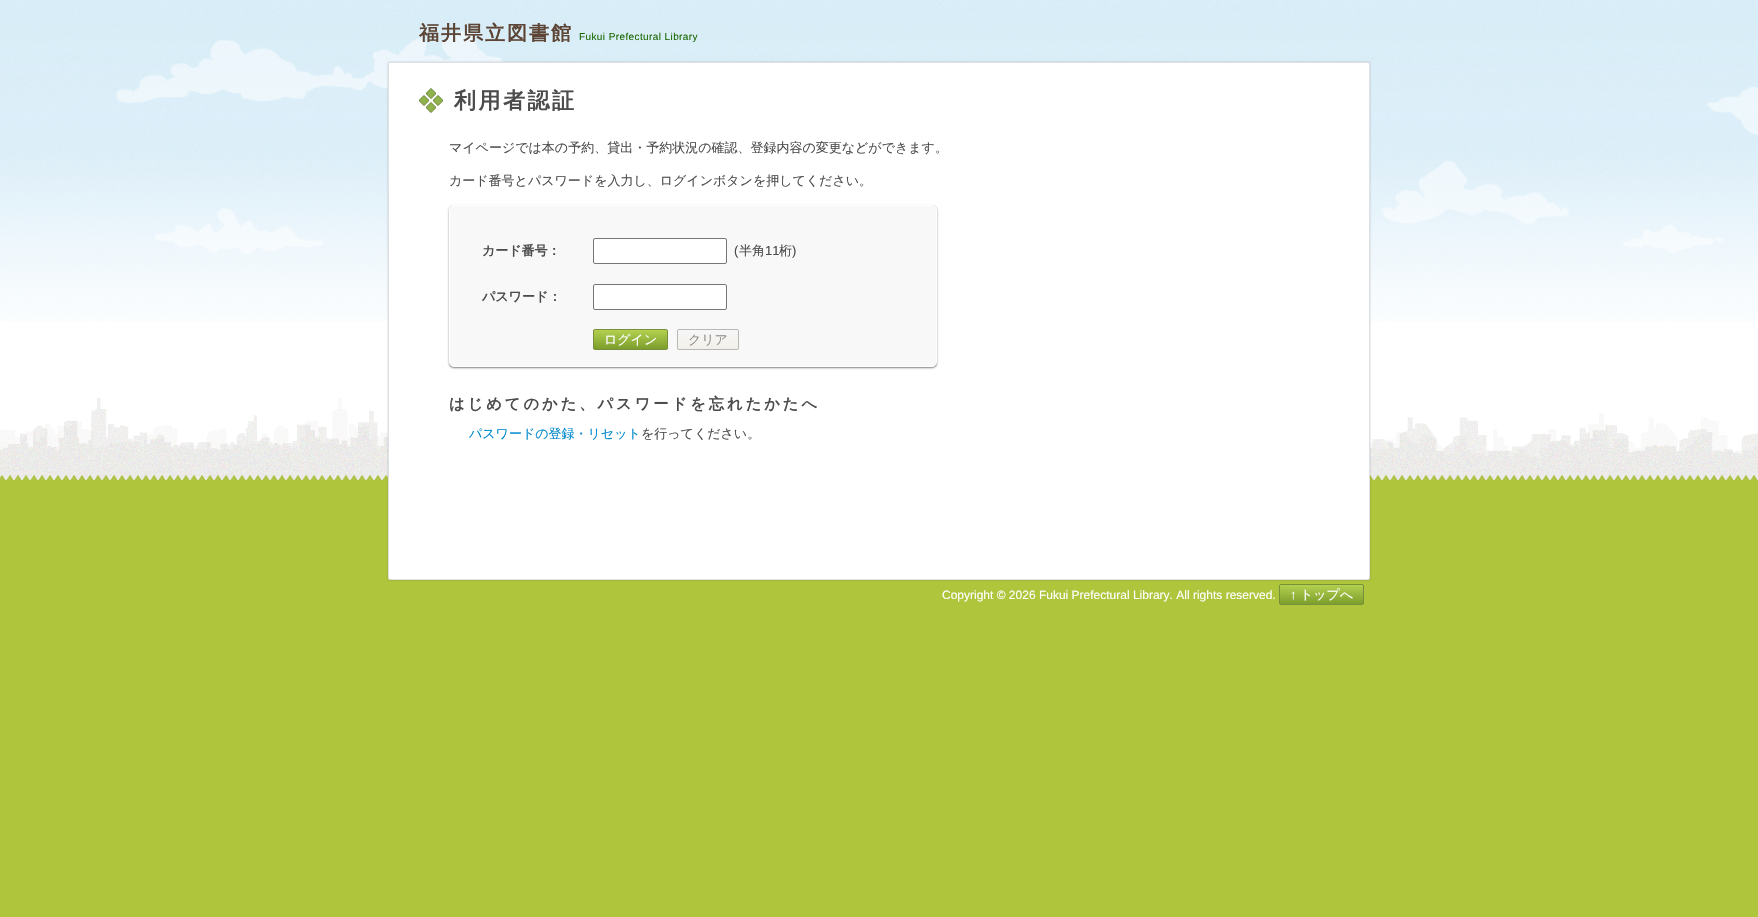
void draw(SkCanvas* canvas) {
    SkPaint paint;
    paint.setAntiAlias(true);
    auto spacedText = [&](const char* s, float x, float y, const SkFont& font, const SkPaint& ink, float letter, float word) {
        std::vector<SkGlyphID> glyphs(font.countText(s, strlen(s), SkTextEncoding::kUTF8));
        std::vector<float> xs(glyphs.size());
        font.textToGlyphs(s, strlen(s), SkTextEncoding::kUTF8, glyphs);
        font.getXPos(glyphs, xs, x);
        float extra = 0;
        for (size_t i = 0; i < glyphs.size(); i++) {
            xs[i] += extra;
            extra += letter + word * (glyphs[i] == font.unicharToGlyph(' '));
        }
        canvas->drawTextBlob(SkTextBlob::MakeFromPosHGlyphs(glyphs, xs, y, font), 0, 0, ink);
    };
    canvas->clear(0xFFAEC53C);
    paint.setColor(0xFFFFFFFF);
    canvas->drawRect(SkRect::MakeXYWH(0, 322, 1758, 76), paint);
    canvas->drawImageRect(SkImages::DeferredFromEncodedData(SkData::MakeFromFileName("img1.png")), SkRect::MakeXYWH(0, 0, 1758, 322), SkSamplingOptions());
    canvas->save();
    canvas->clipRect(SkRect::MakeXYWH(419, 22, 333, 20));
    SkFont font1(fontMgr->matchFamilyStyle("WenQuanYi Zen Hei", SkFontStyle::Bold()), 20);
    font1.setSubpixel(true);
    paint.setColor(0xFF5D4536);
    spacedText("福井県立図書館", 419, 40, font1, paint, 2, 0);
    canvas->restore();
    SkFont font2(fontMgr->matchFamilyStyle("Liberation Sans", SkFontStyle::Normal()), 10);
    font2.setSubpixel(true);
    paint.setColor(0xFF1A6701);
    spacedText("Fukui Prefectural Library", 579, 40, font2, paint, 0.4f, 0);
    canvas->drawImageRect(SkImages::DeferredFromEncodedData(SkData::MakeFromFileName("img3.png")), SkRect::MakeXYWH(0, 398, 1758, 82), SkSamplingOptions());
    canvas->drawImageRect(SkImages::DeferredFromEncodedData(SkData::MakeFromFileName("img4.png")), SkRect::MakeXYWH(0, 475, 1758, 5), SkSamplingOptions());
    paint.setColor(0x36000000);
    paint.setMaskFilter(SkMaskFilter::MakeBlur(kNormal_SkBlurStyle, 1));
    canvas->drawRoundRect(SkRect::MakeXYWH(388, 62, 982, 518), 2, 2, paint);
    paint.setMaskFilter(nullptr);
    paint.setColor(0xFFFFFFFF);
    canvas->drawRoundRect(SkRect::MakeXYWH(388.5f, 62.5f, 981, 517), 1.5f, 1.5f, paint);
    paint.setStyle(SkPaint::kStroke_Style);
    paint.setStrokeWidth(1);
    paint.setColor(0xFFDDE1E3);
    canvas->drawRoundRect(SkRect::MakeXYWH(388.5f, 62.5f, 981, 517), 1.5f, 1.5f, paint);
    canvas->drawImageRect(SkImages::DeferredFromEncodedData(SkData::MakeFromFileName("img2.png")), SkRect::MakeXYWH(419, 88, 24, 25), SkSamplingOptions());
    SkFont font3(fontMgr->matchFamilyStyle("WenQuanYi Zen Hei", SkFontStyle::Bold()), 22);
    font3.setSubpixel(true);
    paint.setStyle(SkPaint::kFill_Style);
    paint.setColor(0xFF4C4C4C);
    spacedText("利用者認証", 454, 108, font3, paint, 2.5f, 0);
    SkFont font4(fontMgr->matchFamilyStyle("WenQuanYi Zen Hei", SkFontStyle(500, SkFontStyle::kNormal_Width, SkFontStyle::kUpright_Slant)), 13);
    font4.setSubpixel(true);
    canvas->drawString("マイページでは本の予約、貸出・予約状況の確認、登録内容の変更などができます。", 449, 152, font4, paint);
    canvas->drawString("カード番号とパスワードを入力し、ログインボタンを押してください。", 449, 185, font4, paint);
    paint.setColor(0x80000000);
    paint.setMaskFilter(SkMaskFilter::MakeBlur(kNormal_SkBlurStyle, 1));
    canvas->drawRoundRect(SkRect::MakeXYWH(449, 206, 488, 162), 5, 5, paint);
    paint.setMaskFilter(nullptr);
    paint.setColor(0xFFF8F8F8);
    canvas->drawRoundRect(SkRect::MakeXYWH(449.5f, 205.5f, 487, 161), 4.5f, 4.5f, paint);
    paint.setStyle(SkPaint::kStroke_Style);
    paint.setColor(0xFFFFFFFF);
    canvas->drawRoundRect(SkRect::MakeXYWH(449.5f, 205.5f, 487, 161), 4.5f, 4.5f, paint);
    SkFont font5(fontMgr->matchFamilyStyle("WenQuanYi Zen Hei", SkFontStyle::Bold()), 13);
    font5.setSubpixel(true);
    paint.setStyle(SkPaint::kFill_Style);
    paint.setColor(0xFF4C4C4C);
    canvas->drawString("カード番号：", 482, 255, font5, paint);
    paint.setColor(0xFFFFFFFF);
    canvas->drawRoundRect(SkRect::MakeXYWH(593.5f, 238.5f, 133, 25), 1.5f, 1.5f, paint);
    paint.setStyle(SkPaint::kStroke_Style);
    paint.setColor(0xFF767676);
    canvas->drawRoundRect(SkRect::MakeXYWH(593.5f, 238.5f, 133, 25), 1.5f, 1.5f, paint);
    SkFont font6(fontMgr->matchFamilyStyle("Liberation Sans", SkFontStyle::Normal()), 13);
    font6.setSubpixel(true);
    paint.setStyle(SkPaint::kFill_Style);
    paint.setColor(0xFF4C4C4C);
    canvas->drawString("(", 734, 255, font6, paint);
    canvas->drawString("半角", 739, 255, font4, paint);
    canvas->drawString("11", 765, 255, font6, paint);
    canvas->drawString("桁", 779, 255, font4, paint);
    canvas->drawString(")", 792, 255, font6, paint);
    canvas->drawString("パスワード：", 482, 301, font5, paint);
    paint.setColor(0xFFFFFFFF);
    canvas->drawRoundRect(SkRect::MakeXYWH(593.5f, 284.5f, 133, 25), 1.5f, 1.5f, paint);
    paint.setStyle(SkPaint::kStroke_Style);
    paint.setColor(0xFF767676);
    canvas->drawRoundRect(SkRect::MakeXYWH(593.5f, 284.5f, 133, 25), 1.5f, 1.5f, paint);
    canvas->save();
    canvas->clipPath(SkPathBuilder().moveTo(595, 329).lineTo(666, 329).cubicTo(667, 329, 668, 330, 668, 331).lineTo(668, 348).cubicTo(668, 349, 667, 350, 666, 350).lineTo(595, 350).cubicTo(594, 350, 593, 349, 593, 348).lineTo(593, 331).cubicTo(593, 330, 594, 329, 595, 329).close().detach(), true);
    paint.setStyle(SkPaint::kFill_Style);
    {
        const SkColor colors[] = {0xFFB3D04F, 0xFF7C9E2C};
        const float stops[] = {0, 1};
        const SkPoint ends[] = {{631, 330}, {631, 349}};
        paint.setShader(SkGradientShader::MakeLinear(ends, colors, stops, 2, SkTileMode::kClamp));
        paint.setAlpha(255);
    }
    canvas->drawRect(SkRect::MakeXYWH(593, 330, 75, 19), paint);
    canvas->restore();
    paint.setStyle(SkPaint::kStroke_Style);
    paint.setShader(nullptr);
    paint.setColor(0xFF788F3C);
    canvas->drawRoundRect(SkRect::MakeXYWH(593.5f, 329.5f, 74, 20), 1.5f, 1.5f, paint);
    paint.setStyle(SkPaint::kFill_Style);
    paint.setColor(0xFFFFFFFF);
    canvas->drawString("ログイン", 604, 344, font4, paint);
    canvas->save();
    canvas->clipPath(SkPathBuilder().moveTo(679, 329).lineTo(737, 329).cubicTo(738, 329, 739, 330, 739, 331).lineTo(739, 348).cubicTo(739, 349, 738, 350, 737, 350).lineTo(679, 350).cubicTo(678, 350, 677, 349, 677, 348).lineTo(677, 331).cubicTo(677, 330, 678, 329, 679, 329).close().detach(), true);
    {
        const SkColor colors[] = {0xFFF6F7F8, 0xFFF3F0EA};
        const float stops[] = {0, 1};
        const SkPoint ends[] = {{708, 330}, {708, 349}};
        paint.setShader(SkGradientShader::MakeLinear(ends, colors, stops, 2, SkTileMode::kClamp));
        paint.setAlpha(255);
    }
    canvas->drawRect(SkRect::MakeXYWH(677, 330, 62, 19), paint);
    canvas->restore();
    paint.setStyle(SkPaint::kStroke_Style);
    paint.setShader(nullptr);
    paint.setColor(0xFFB7B7B6);
    canvas->drawRoundRect(SkRect::MakeXYWH(677.5f, 329.5f, 61, 20), 1.5f, 1.5f, paint);
    paint.setStyle(SkPaint::kFill_Style);
    paint.setColor(0xFF918E8A);
    canvas->drawString("クリア", 688, 344, font4, paint);
    SkFont font7(fontMgr->matchFamilyStyle("WenQuanYi Zen Hei", SkFontStyle::Bold()), 15.25f);
    font7.setSubpixel(true);
    paint.setColor(0xFF4C4C4C);
    spacedText("はじめてのかた、パスワードを忘れたかたへ", 449, 409, font7, paint, 3, 0);
    paint.setColor(0xFF0088CC);
    canvas->drawString("パスワードの登録・リセット", 469, 438, font4, paint);
    paint.setColor(0xFF4C4C4C);
    canvas->drawString("を行ってください。", 641, 438, font4, paint);
    SkFont font8(fontMgr->matchFamilyStyle("Liberation Sans", SkFontStyle::Normal()), 12);
    font8.setSubpixel(true);
    paint.setColor(0xFFFFFFFF);
    canvas->drawString("Copyright © 2026 Fukui Prefectural Library. All rights reserved.", 942, 599, font8, paint);
    canvas->save();
    canvas->clipPath(SkPathBuilder().moveTo(1281, 584).lineTo(1362, 584).cubicTo(1363, 584, 1364, 585, 1364, 586).lineTo(1364, 603).cubicTo(1364, 604, 1363, 605, 1362, 605).lineTo(1281, 605).cubicTo(1280, 605, 1279, 604, 1279, 603).lineTo(1279, 586).cubicTo(1279, 585, 1280, 584, 1281, 584).close().detach(), true);
    {
        const SkColor colors[] = {0xFFB3D04F, 0xFF7C9E2C};
        const float stops[] = {0, 1};
        const SkPoint ends[] = {{1322, 585}, {1322, 604}};
        paint.setShader(SkGradientShader::MakeLinear(ends, colors, stops, 2, SkTileMode::kClamp));
        paint.setAlpha(255);
    }
    canvas->drawRect(SkRect::MakeXYWH(1279, 585, 85, 19), paint);
    canvas->restore();
    paint.setStyle(SkPaint::kStroke_Style);
    paint.setShader(nullptr);
    paint.setColor(0xFF788F3C);
    canvas->drawRoundRect(SkRect::MakeXYWH(1279.5f, 584.5f, 84, 20), 1.5f, 1.5f, paint);
    paint.setStyle(SkPaint::kFill_Style);
    paint.setColor(0xFFFFFFFF);
    canvas->drawString("↑", 1290, 599, font6, paint);
    canvas->drawString("トップへ", 1300, 599, font4, paint);
}
